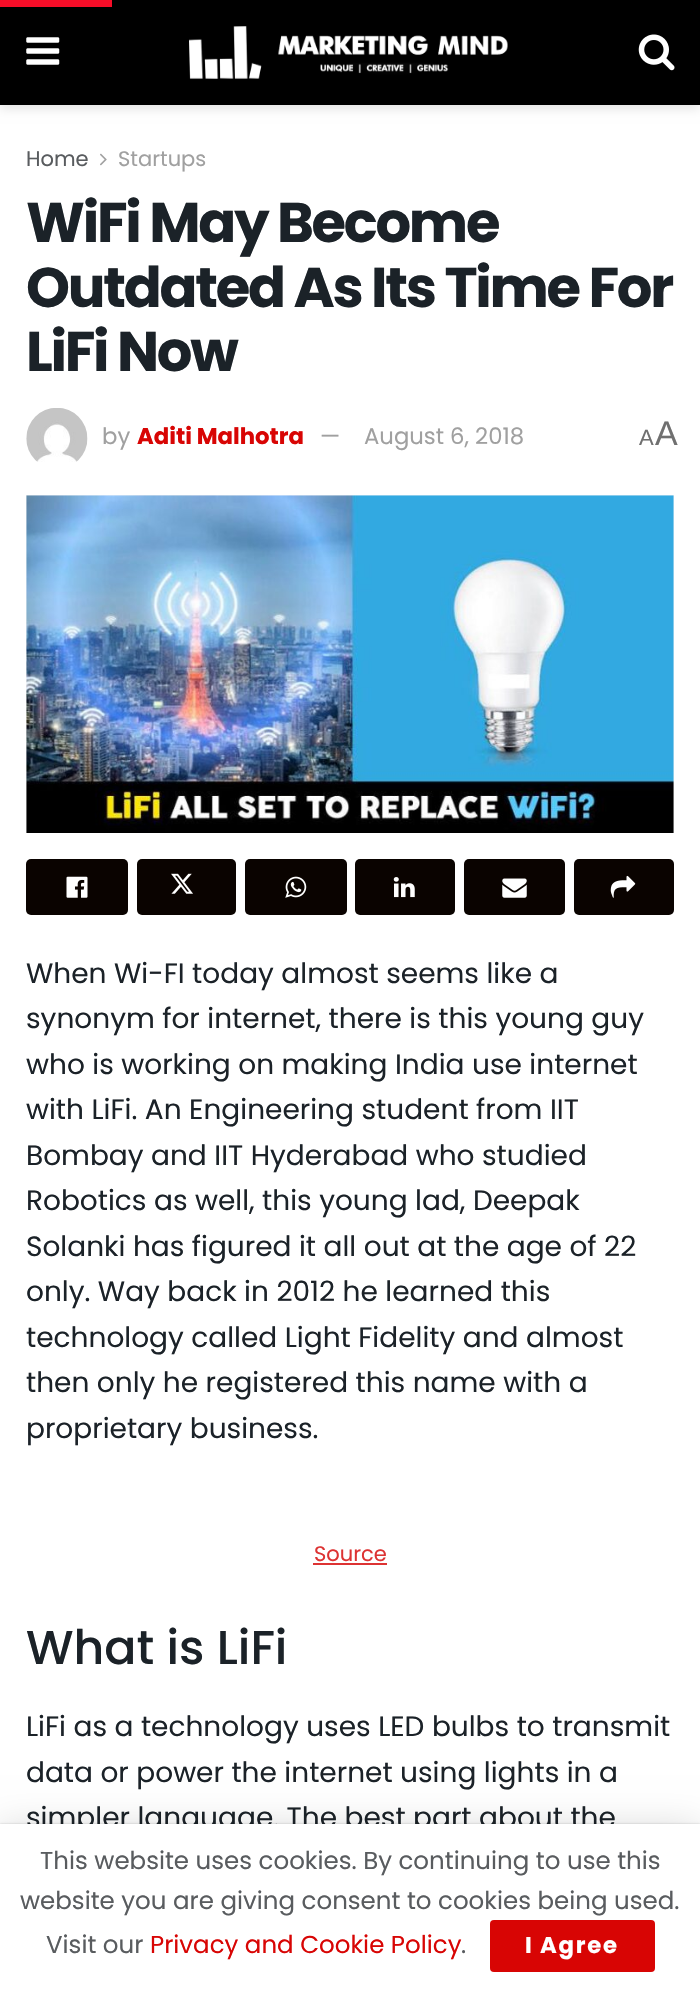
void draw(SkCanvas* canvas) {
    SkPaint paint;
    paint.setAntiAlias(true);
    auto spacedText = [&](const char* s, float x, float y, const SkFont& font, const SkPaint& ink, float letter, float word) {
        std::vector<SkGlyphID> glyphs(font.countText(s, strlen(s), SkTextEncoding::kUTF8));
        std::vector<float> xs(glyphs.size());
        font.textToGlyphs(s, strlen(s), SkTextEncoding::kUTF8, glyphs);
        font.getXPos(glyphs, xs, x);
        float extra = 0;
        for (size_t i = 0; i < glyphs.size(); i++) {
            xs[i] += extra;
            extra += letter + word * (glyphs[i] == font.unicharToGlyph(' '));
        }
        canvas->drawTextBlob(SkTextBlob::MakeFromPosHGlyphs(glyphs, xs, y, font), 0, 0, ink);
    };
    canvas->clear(0xFFFFFFFF);
    paint.setColor(0x1A000000);
    paint.setMaskFilter(SkMaskFilter::MakeBlur(kNormal_SkBlurStyle, 5));
    canvas->drawRect(SkRect::MakeXYWH(0, 4, 700, 105), paint);
    paint.setMaskFilter(nullptr);
    paint.setColor(0xFF000000);
    canvas->drawRect(SkRect::MakeXYWH(0, 0, 700, 105), paint);
    paint.setColor(0xFFF70D28);
    canvas->drawRect(SkRect::MakeXYWH(0, 0, 112, 7), paint);
    canvas->drawImageRect(SkImages::DeferredFromEncodedData(SkData::MakeFromFileName("img1.png")), SkRect::MakeXYWH(26, 37, 34, 28), SkSamplingOptions());
    canvas->drawImageRect(SkImages::DeferredFromEncodedData(SkData::MakeFromFileName("img2.png")), SkRect::MakeXYWH(189, 26, 319, 53), SkSamplingOptions());
    canvas->drawImageRect(SkImages::DeferredFromEncodedData(SkData::MakeFromFileName("img3.png")), SkRect::MakeXYWH(638, 34, 37, 37), SkSamplingOptions());
    SkFont font1(fontMgr->matchFamilyStyle("Poppins", SkFontStyle::Normal()), 21);
    font1.setSubpixel(true);
    paint.setColor(0xFF595C5F);
    canvas->drawString("Home", 26, 166, font1, paint);
    canvas->drawImageRect(SkImages::DeferredFromEncodedData(SkData::MakeFromFileName("img4.png")), SkRect::MakeXYWH(100, 153, 7, 13), SkSamplingOptions());
    paint.setColor(0xFFA0A0A0);
    canvas->drawString("Startups", 118, 166, font1, paint);
    SkFont font2(fontMgr->matchFamilyStyle("Poppins", SkFontStyle::Bold()), 56);
    font2.setSubpixel(true);
    paint.setColor(0xFF1B2228);
    spacedText("WiFi May Become", 26, 242, font2, paint, -2.25f, 0);
    spacedText("Outdated As Its Time For", 26, 307, font2, paint, -2.25f, 0);
    spacedText("LiFi Now", 26, 371, font2, paint, -2.25f, 0);
    canvas->drawImageRect(SkImages::DeferredFromEncodedData(SkData::MakeFromFileName("img5.png")), SkRect::MakeXYWH(26, 408, 62, 54), SkSamplingOptions());
    SkFont font3(fontMgr->matchFamilyStyle("Poppins", SkFontStyle::Normal()), 22.75f);
    font3.setSubpixel(true);
    paint.setColor(0xFFA0A0A0);
    canvas->drawString("by", 102, 444, font3, paint);
    SkFont font4(fontMgr->matchFamilyStyle("Poppins", SkFontStyle::Bold()), 22.75f);
    font4.setSubpixel(true);
    paint.setColor(0xFFD80504);
    canvas->drawString("Aditi Malhotra", 137, 444, font4, paint);
    paint.setColor(0xFFA0A0A0);
    canvas->drawString("—", 320, 444, font3, paint);
    canvas->drawString("August 6, 2018", 364, 444, font3, paint);
    SkFont font5(fontMgr->matchFamilyStyle("Liberation Sans", SkFontStyle::Normal()), 22);
    font5.setSubpixel(true);
    paint.setColor(0xFF707070);
    canvas->drawString("A", 639, 445, font5, paint);
    SkFont font6(fontMgr->matchFamilyStyle("Liberation Sans", SkFontStyle::Normal()), 34);
    font6.setSubpixel(true);
    canvas->drawString("A", 655, 445, font6, paint);
    paint.setColor(0xFFF7F7F7);
    canvas->drawRect(SkRect::MakeXYWH(26, 495, 648, 338), paint);
    canvas->drawImageRect(SkImages::DeferredFromEncodedData(SkData::MakeFromFileName("img7.png")), SkRect::MakeXYWH(101, 495, 123, 1), SkSamplingOptions());
    canvas->drawImageRect(SkImages::DeferredFromEncodedData(SkData::MakeFromFileName("img6.png")), SkRect::MakeXYWH(26, 495, 648, 338), SkSamplingOptions());
    paint.setColor(0xFF0A0300);
    canvas->drawRoundRect(SkRect::MakeXYWH(26, 859, 102, 56), 5, 5, paint);
    canvas->drawImageRect(SkImages::DeferredFromEncodedData(SkData::MakeFromFileName("img8.png")), SkRect::MakeXYWH(66, 876, 22, 22), SkSamplingOptions());
    canvas->drawRoundRect(SkRect::MakeXYWH(137, 859, 99, 56), 5, 5, paint);
    canvas->drawImageRect(SkImages::DeferredFromEncodedData(SkData::MakeFromFileName("img9.png")), SkRect::MakeXYWH(171, 873, 22, 21), SkSamplingOptions());
    canvas->drawRoundRect(SkRect::MakeXYWH(245, 859, 102, 56), 5, 5, paint);
    canvas->drawImageRect(SkImages::DeferredFromEncodedData(SkData::MakeFromFileName("img10.png")), SkRect::MakeXYWH(285, 876, 22, 22), SkSamplingOptions());
    canvas->drawRoundRect(SkRect::MakeXYWH(355, 859, 100, 56), 5, 5, paint);
    canvas->drawImageRect(SkImages::DeferredFromEncodedData(SkData::MakeFromFileName("img11.png")), SkRect::MakeXYWH(393, 877, 22, 21), SkSamplingOptions());
    canvas->drawRoundRect(SkRect::MakeXYWH(464, 859, 101, 56), 5, 5, paint);
    canvas->drawImageRect(SkImages::DeferredFromEncodedData(SkData::MakeFromFileName("img12.png")), SkRect::MakeXYWH(502, 878, 25, 20), SkSamplingOptions());
    canvas->drawRoundRect(SkRect::MakeXYWH(574, 859, 100, 56), 5, 5, paint);
    canvas->drawImageRect(SkImages::DeferredFromEncodedData(SkData::MakeFromFileName("img13.png")), SkRect::MakeXYWH(610, 875, 26, 23), SkSamplingOptions());
    SkFont font7(fontMgr->matchFamilyStyle("Poppins", SkFontStyle::Normal()), 28);
    font7.setSubpixel(true);
    paint.setColor(0xFF1B2228);
    canvas->drawString("When Wi-FI today almost seems like a", 26, 983, font7, paint);
    canvas->drawString("synonym for internet, there is this young guy", 26, 1028, font7, paint);
    canvas->drawString("who is working on making India use internet", 26, 1074, font7, paint);
    canvas->drawString("with LiFi. An Engineering student from IIT", 26, 1119, font7, paint);
    canvas->drawString("Bombay and IIT Hyderabad who studied", 26, 1165, font7, paint);
    canvas->drawString("Robotics as well, this young lad, Deepak", 26, 1210, font7, paint);
    canvas->drawString("Solanki has figured it all out at the age of 22", 26, 1256, font7, paint);
    canvas->drawString("only. Way back in 2012 he learned this", 26, 1301, font7, paint);
    canvas->drawString("technology called Light Fidelity and almost", 26, 1347, font7, paint);
    canvas->drawString("then only he registered this name with a", 26, 1392, font7, paint);
    canvas->drawString("proprietary business.", 26, 1438, font7, paint);
    paint.setColor(0xFFDD3333);
    canvas->drawString("Source", 314, 1561, font1, paint);
    canvas->drawRect(SkRect::MakeXYWH(313, 1563, 74, 2), paint);
    SkFont font8(fontMgr->matchFamilyStyle("Poppins", SkFontStyle(500, SkFontStyle::kNormal_Width, SkFontStyle::kUpright_Slant)), 47.5f);
    font8.setSubpixel(true);
    paint.setColor(0xFF1B2228);
    canvas->drawString("What is LiFi", 26, 1664, font8, paint);
    canvas->drawString("LiFi as a technology uses LED bulbs to transmit", 26, 1736, font7, paint);
    canvas->drawString("data or power the internet using lights in a", 26, 1782, font7, paint);
    canvas->drawString("simpler language. The best part about the", 26, 1827, font7, paint);
    paint.setColor(0x26000000);
    paint.setMaskFilter(SkMaskFilter::MakeBlur(kNormal_SkBlurStyle, 17.5f));
    canvas->drawRect(SkRect::MakeXYWH(0, 1827, 700, 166), paint);
    paint.setMaskFilter(nullptr);
    paint.setColor(0x33000000);
    paint.setMaskFilter(SkMaskFilter::MakeBlur(kNormal_SkBlurStyle, 1));
    canvas->drawRect(SkRect::MakeXYWH(0, 1824, 700, 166), paint);
    paint.setMaskFilter(nullptr);
    paint.setColor(0xFFFFFFFF);
    canvas->drawRect(SkRect::MakeXYWH(0, 1824, 700, 165), paint);
    SkFont font9(fontMgr->matchFamilyStyle("Poppins", SkFontStyle::Normal()), 24.5f);
    font9.setSubpixel(true);
    paint.setColor(0xFF595C5F);
    canvas->drawString("This website uses cookies. By continuing to use this", 40, 1869, font9, paint);
    canvas->drawString("website you are giving consent to cookies being used.", 20, 1909, font9, paint);
    canvas->drawString("Visit our", 46, 1953, font9, paint);
    paint.setColor(0xFFD80504);
    canvas->drawString("Privacy and Cookie Policy", 150, 1953, font9, paint);
    paint.setColor(0xFF595C5F);
    canvas->drawString(".", 461, 1953, font9, paint);
    paint.setColor(0xFFD80504);
    canvas->drawRoundRect(SkRect::MakeXYWH(490, 1920, 165, 52), 4, 4, paint);
    paint.setColor(0xFFFFFFFF);
    spacedText("I Agree", 525, 1953, font4, paint, 1.75f, 0);
}
